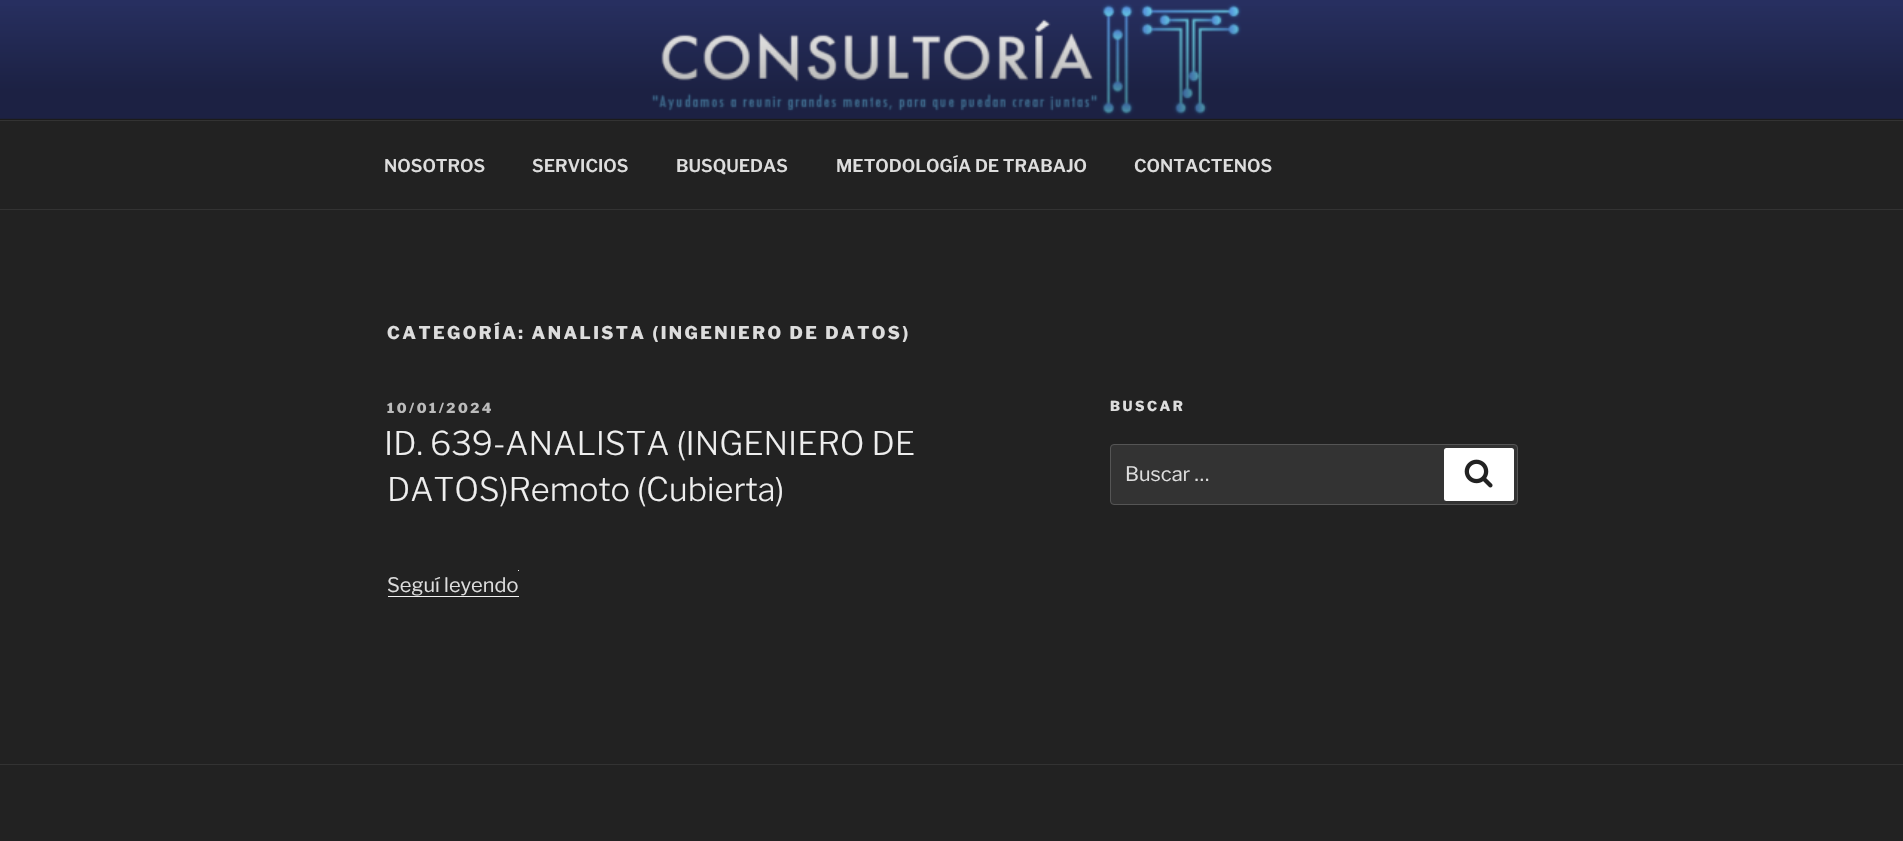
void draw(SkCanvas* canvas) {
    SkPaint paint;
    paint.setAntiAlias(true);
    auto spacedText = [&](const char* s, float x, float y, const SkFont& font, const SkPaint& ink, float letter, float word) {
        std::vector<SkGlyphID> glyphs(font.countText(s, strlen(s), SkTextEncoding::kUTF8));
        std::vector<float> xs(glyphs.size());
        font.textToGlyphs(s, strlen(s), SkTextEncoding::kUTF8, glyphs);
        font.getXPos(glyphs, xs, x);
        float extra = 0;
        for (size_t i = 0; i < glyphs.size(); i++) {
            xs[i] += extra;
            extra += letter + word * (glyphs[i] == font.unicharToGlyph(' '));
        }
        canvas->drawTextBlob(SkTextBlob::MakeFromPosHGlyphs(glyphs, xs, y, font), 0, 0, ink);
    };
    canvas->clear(0xFF222222);
    paint.setColor(0xFF262626);
    canvas->drawRect(SkRect::MakeXYWH(0, 118, 1903, 2), paint);
    canvas->drawImageRect(SkImages::DeferredFromEncodedData(SkData::MakeFromFileName("img1.png")), SkRect::MakeXYWH(0, 0, 1903, 119), SkSamplingOptions());
    {
        const SkColor colors[] = {0x00000000, 0x4D000000, 0x4D000000};
        const float stops[] = {0, 0.75f, 1};
        const SkPoint ends[] = {{952, 0}, {952, 120}};
        paint.setShader(SkGradientShader::MakeLinear(ends, colors, stops, 3, SkTileMode::kClamp));
        paint.setAlpha(255);
    }
    canvas->drawRect(SkRect::MakeXYWH(0, 6, 1903, 114), paint);
    paint.setShader(nullptr);
    paint.setColor(0xFF333333);
    canvas->drawRect(SkRect::MakeXYWH(0, 120, 1903, 1), paint);
    canvas->drawRect(SkRect::MakeXYWH(0, 209, 1903, 1), paint);
    SkFont font1(fontMgr->matchFamilyStyle("Libre Franklin", SkFontStyle(600, SkFontStyle::kNormal_Width, SkFontStyle::kUpright_Slant)), 17.5f);
    font1.setSubpixel(true);
    paint.setColor(0xFFDDDDDD);
    canvas->drawString("NOSOTROS", 384, 172, font1, paint);
    canvas->drawString("SERVICIOS", 532, 172, font1, paint);
    canvas->drawString("BUSQUEDAS", 676, 172, font1, paint);
    canvas->drawString("METODOLOGÍA DE TRABAJO", 836, 172, font1, paint);
    canvas->drawString("CONTACTENOS", 1134, 172, font1, paint);
    SkFont font2(fontMgr->matchFamilyStyle("Libre Franklin", SkFontStyle(800, SkFontStyle::kNormal_Width, SkFontStyle::kUpright_Slant)), 17.5f);
    font2.setSubpixel(true);
    spacedText("CATEGORÍA: ANALISTA (INGENIERO DE DATOS)", 387, 339, font2, paint, 2.45f, 0);
    SkFont font3(fontMgr->matchFamilyStyle("Libre Franklin", SkFontStyle(800, SkFontStyle::kNormal_Width, SkFontStyle::kUpright_Slant)), 13.75f);
    font3.setSubpixel(true);
    paint.setColor(0xFFBBBBBB);
    spacedText("10/01/2024", 387, 413, font3, paint, 2.5f, 0);
    SkFont font4(fontMgr->matchFamilyStyle("Libre Franklin", SkFontStyle(300, SkFontStyle::kNormal_Width, SkFontStyle::kUpright_Slant)), 32.5f);
    font4.setSubpixel(true);
    paint.setColor(0xFFEEEEEE);
    canvas->drawString("ID. 639-ANALISTA (INGENIERO DE", 384, 455, font4, paint);
    canvas->drawString("DATOS)Remoto (Cubierta)", 387, 501, font4, paint);
    SkFont font5(fontMgr->matchFamilyStyle("Libre Franklin", SkFontStyle::Normal()), 20);
    font5.setSubpixel(true);
    paint.setColor(0xFFDDDDDD);
    canvas->drawString("Seguí leyendo", 387, 592, font5, paint);
    paint.setColor(0xFFF0F0F0);
    canvas->drawRect(SkRect::MakeXYWH(388, 596, 131, 1), paint);
    canvas->drawRect(SkRect::MakeXYWH(518, 570, 1, 1), paint);
    paint.setColor(0xFFDDDDDD);
    spacedText("BUSCAR", 1110, 411, font3, paint, 2.5f, 0);
    paint.setColor(0xFF333333);
    canvas->drawRoundRect(SkRect::MakeXYWH(1110.5f, 444.5f, 407, 60), 3.5f, 3.5f, paint);
    paint.setStyle(SkPaint::kStroke_Style);
    paint.setStrokeWidth(1);
    paint.setColor(0xFF555555);
    canvas->drawRoundRect(SkRect::MakeXYWH(1110.5f, 444.5f, 407, 60), 3.5f, 3.5f, paint);
    paint.setStyle(SkPaint::kFill_Style);
    paint.setColor(0xFFDDDDDD);
    canvas->drawString("Buscar …", 1125, 481, font5, paint);
    paint.setColor(0xFFFFFFFF);
    canvas->drawRoundRect(SkRect::MakeXYWH(1444, 448, 70, 53), 2.5f, 2.5f, paint);
    canvas->drawImageRect(SkImages::DeferredFromEncodedData(SkData::MakeFromFileName("img2.png")), SkRect::MakeXYWH(1464, 459, 29, 29), SkSamplingOptions());
    paint.setColor(0xFF333333);
    canvas->drawRect(SkRect::MakeXYWH(0, 764, 1903, 1), paint);
}
